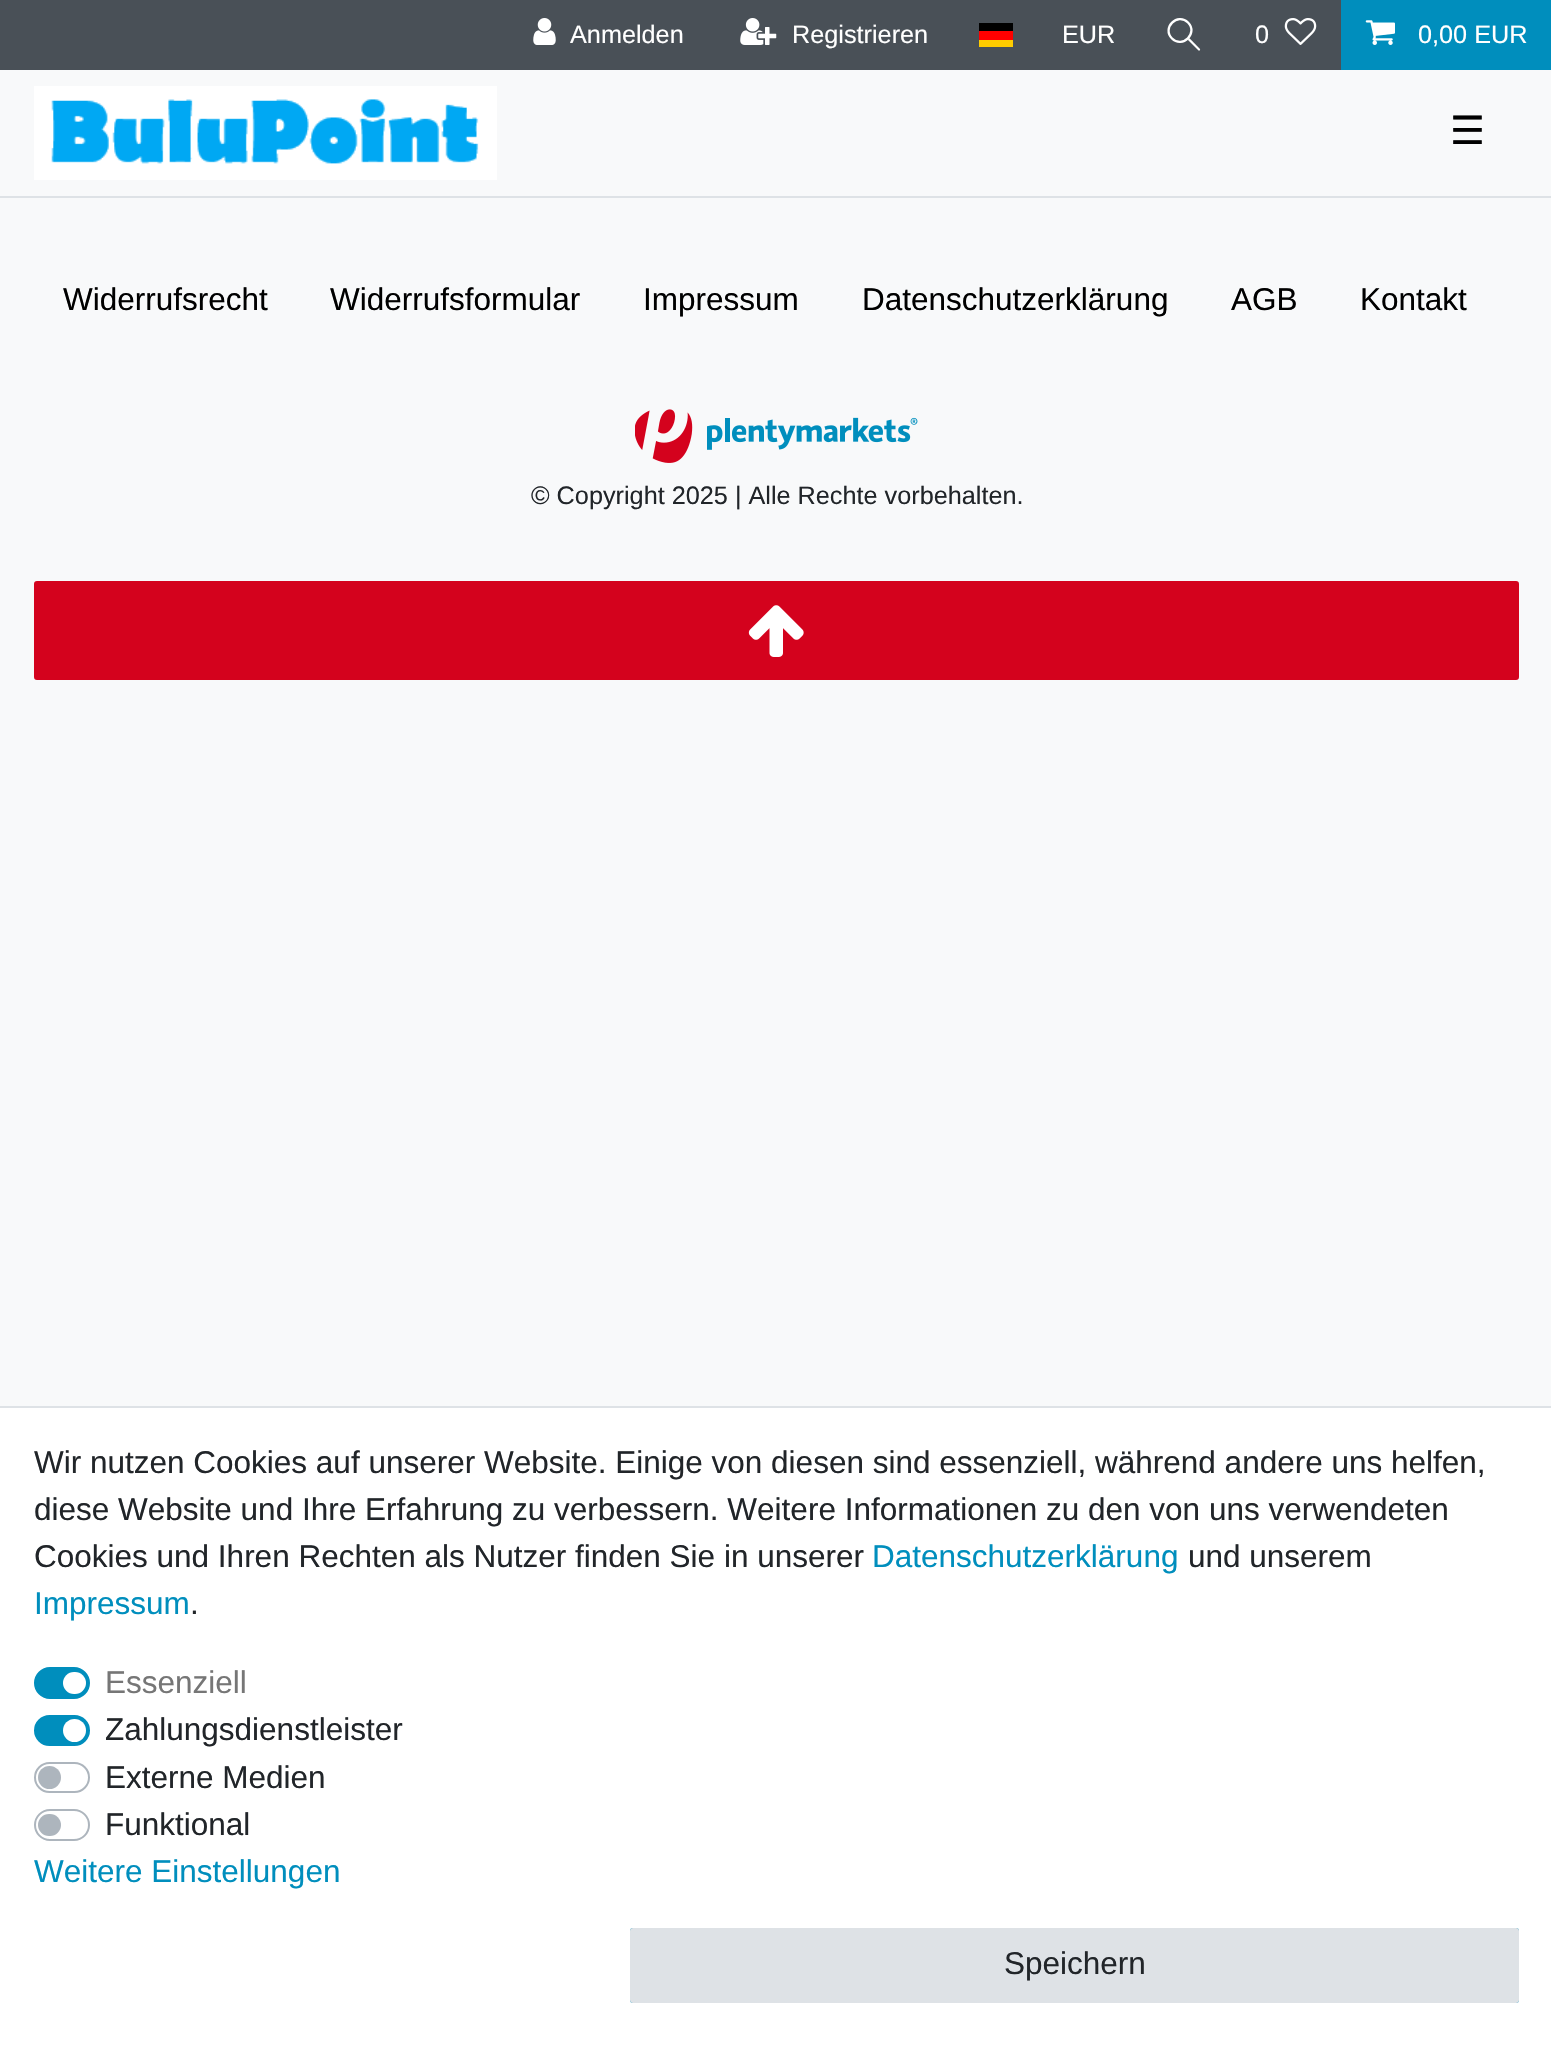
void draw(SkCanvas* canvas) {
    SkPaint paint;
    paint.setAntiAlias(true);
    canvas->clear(0xFFF8F9FA);
    paint.setColor(0xFF495057);
    canvas->drawRect(SkRect::MakeXYWH(0, 0, 1341, 70), paint);
    canvas->drawImageRect(SkImages::DeferredFromEncodedData(SkData::MakeFromFileName("img1.png")), SkRect::MakeXYWH(533, 18, 23, 27), SkSamplingOptions());
    SkFont font1(fontMgr->matchFamilyStyle("Liberation Sans", SkFontStyle::Normal()), 25.25f);
    font1.setSubpixel(true);
    paint.setColor(0xFFFFFFFF);
    canvas->drawString("Anmelden", 570, 43, font1, paint);
    canvas->drawImageRect(SkImages::DeferredFromEncodedData(SkData::MakeFromFileName("img2.png")), SkRect::MakeXYWH(740, 18, 37, 27), SkSamplingOptions());
    canvas->drawString("Registrieren", 792, 43, font1, paint);
    paint.setColor(0xFFFFCC00);
    canvas->drawRect(SkRect::MakeXYWH(979, 40, 34, 7), paint);
    paint.setColor(0xFF000000);
    canvas->drawRect(SkRect::MakeXYWH(979, 23, 34, 8), paint);
    paint.setColor(0xFFFF0000);
    canvas->drawRect(SkRect::MakeXYWH(979, 31, 34, 9), paint);
    paint.setColor(0xFFFFFFFF);
    canvas->drawString("EUR", 1062, 43, font1, paint);
    canvas->drawPath(SkPathBuilder().moveTo(1198.5f, 50.5f).lineTo(1176, 28).lineTo(1176, 27).cubicTo(1176, 26.5f, 1177, 26, 1177.5f, 26).lineTo(1200, 49).cubicTo(1200.5f, 50, 1199.5f, 51, 1198.5f, 50.5f).close().detach(), paint);
    paint.setColor(0xFF495057);
    canvas->drawPath(SkPathBuilder().moveTo(1171.5f, 39).cubicTo(1160, 27.5f, 1177.5f, 10, 1189, 21.5f).cubicTo(1200.5f, 33, 1183, 50.5f, 1171.5f, 39).close().detach(), paint);
    paint.setStyle(SkPaint::kStroke_Style);
    paint.setStrokeWidth(2.3f);
    paint.setColor(0xFFFFFFFF);
    canvas->drawPath(SkPathBuilder().moveTo(1172, 38.5f).cubicTo(1161.5f, 28, 1177.5f, 12, 1188, 22.5f).cubicTo(1198.5f, 33, 1182.5f, 49, 1172, 38.5f).close().detach(), paint);
    paint.setStyle(SkPaint::kFill_Style);
    canvas->drawString("0", 1255, 43, font1, paint);
    canvas->drawImageRect(SkImages::DeferredFromEncodedData(SkData::MakeFromFileName("img3.png")), SkRect::MakeXYWH(1284, 18, 33, 27), SkSamplingOptions());
    paint.setColor(0xFF008EBD);
    canvas->drawRect(SkRect::MakeXYWH(1341, 0, 210, 70), paint);
    canvas->drawImageRect(SkImages::DeferredFromEncodedData(SkData::MakeFromFileName("img4.png")), SkRect::MakeXYWH(1365, 20, 30, 25), SkSamplingOptions());
    paint.setColor(0xFFFFFFFF);
    canvas->drawString("0,00 EUR", 1418, 43, font1, paint);
    paint.setColor(0xFFDEE2E6);
    canvas->drawRect(SkRect::MakeXYWH(0, 196, 1551, 2), paint);
    canvas->drawImageRect(SkImages::DeferredFromEncodedData(SkData::MakeFromFileName("img5.png")), SkRect::MakeXYWH(34, 86, 463, 94), SkSamplingOptions());
    SkFont font2(fontMgr->matchFamilyStyle("DejaVu Sans", SkFontStyle::Normal()), 39);
    font2.setSubpixel(true);
    paint.setColor(0xFF000000);
    canvas->drawString("☰", 1450, 144, font2, paint);
    SkFont font3(fontMgr->matchFamilyStyle("Liberation Sans", SkFontStyle::Normal()), 31.5f);
    font3.setSubpixel(true);
    canvas->drawString("Widerrufsrecht", 63, 310, font3, paint);
    canvas->drawString("Widerrufsformular", 330, 310, font3, paint);
    canvas->drawString("Impressum", 643, 310, font3, paint);
    canvas->drawString("Datenschutzerklärung", 862, 310, font3, paint);
    canvas->drawString("AGB", 1231, 310, font3, paint);
    canvas->drawString("Kontakt", 1360, 310, font3, paint);
    canvas->drawImageRect(SkImages::DeferredFromEncodedData(SkData::MakeFromFileName("img6.png")), SkRect::MakeXYWH(635, 409, 283, 54), SkSamplingOptions());
    paint.setColor(0xFF212529);
    canvas->drawString("© Copyright 2025 | Alle Rechte vorbehalten.", 531, 504, font1, paint);
    paint.setColor(0xFFFFFFFF);
    canvas->drawRect(SkRect::MakeXYWH(0, 1408, 1551, 641), paint);
    paint.setColor(0xFFDEE2E6);
    canvas->drawRect(SkRect::MakeXYWH(0, 1406, 1551, 2), paint);
    paint.setColor(0xFF212529);
    canvas->drawString("Wir nutzen Cookies auf unserer Website. Einige von diesen sind essenziell, während andere uns helfen,", 34, 1473, font3, paint);
    canvas->drawString("diese Website und Ihre Erfahrung zu verbessern. Weitere Informationen zu den von uns verwendeten", 34, 1520, font3, paint);
    canvas->drawString("Cookies und Ihren Rechten als Nutzer finden Sie in unserer", 34, 1567, font3, paint);
    paint.setColor(0xFF008EBD);
    canvas->drawString("Datenschutzerklärung", 872, 1567, font3, paint);
    paint.setColor(0xFF212529);
    canvas->drawString("und unserem", 1188, 1567, font3, paint);
    paint.setColor(0xFF008EBD);
    canvas->drawString("Impressum", 34, 1614, font3, paint);
    paint.setColor(0xFF212529);
    canvas->drawString(".", 190, 1614, font3, paint);
    paint.setColor(0xFF008EBD);
    canvas->drawRoundRect(SkRect::MakeXYWH(35, 1668, 54, 30), 15, 15, paint);
    paint.setStyle(SkPaint::kStroke_Style);
    paint.setStrokeWidth(2);
    canvas->drawRoundRect(SkRect::MakeXYWH(35, 1668, 54, 30), 15, 15, paint);
    paint.setStyle(SkPaint::kFill_Style);
    paint.setColor(0xFF767676);
    canvas->drawString("Essenziell", 105, 1693, font3, paint);
    paint.setColor(0xFFFFFFFF);
    canvas->drawRoundRect(SkRect::MakeXYWH(63, 1672, 23, 22), 11, 11, paint);
    paint.setColor(0xFF008EBD);
    canvas->drawRoundRect(SkRect::MakeXYWH(35, 1716, 54, 29), 14.5f, 14.5f, paint);
    paint.setStyle(SkPaint::kStroke_Style);
    canvas->drawRoundRect(SkRect::MakeXYWH(35, 1716, 54, 29), 14.5f, 14.5f, paint);
    paint.setStyle(SkPaint::kFill_Style);
    paint.setColor(0xFF212529);
    canvas->drawString("Zahlungsdienstleister", 105, 1740, font3, paint);
    paint.setColor(0xFFFFFFFF);
    canvas->drawCircle(74.5f, 1730.5f, 11.5f, paint);
    paint.setStyle(SkPaint::kStroke_Style);
    paint.setColor(0xFFADB5BD);
    canvas->drawRoundRect(SkRect::MakeXYWH(35, 1763, 54, 29), 14.5f, 14.5f, paint);
    paint.setStyle(SkPaint::kFill_Style);
    paint.setColor(0xFF212529);
    canvas->drawString("Externe Medien", 105, 1788, font3, paint);
    paint.setColor(0xFFADB5BD);
    canvas->drawCircle(49.5f, 1777.5f, 11.5f, paint);
    paint.setStyle(SkPaint::kStroke_Style);
    canvas->drawRoundRect(SkRect::MakeXYWH(35, 1810, 54, 30), 15, 15, paint);
    paint.setStyle(SkPaint::kFill_Style);
    paint.setColor(0xFF212529);
    canvas->drawString("Funktional", 105, 1835, font3, paint);
    paint.setColor(0xFFADB5BD);
    canvas->drawRoundRect(SkRect::MakeXYWH(38, 1814, 23, 22), 11, 11, paint);
    paint.setColor(0xFF008EBD);
    canvas->drawString("Weitere Einstellungen", 34, 1882, font3, paint);
    paint.setStyle(SkPaint::kStroke_Style);
    canvas->drawRoundRect(SkRect::MakeXYWH(631, 1929, 887, 73), 2, 2, paint);
    paint.setStyle(SkPaint::kFill_Style);
    paint.setColor(0xFFDEE2E6);
    canvas->drawRoundRect(SkRect::MakeXYWH(631, 1929, 887, 73), 2, 2, paint);
    paint.setStyle(SkPaint::kStroke_Style);
    canvas->drawRoundRect(SkRect::MakeXYWH(631, 1929, 887, 73), 2, 2, paint);
    paint.setStyle(SkPaint::kFill_Style);
    paint.setColor(0xFF212529);
    canvas->drawString("Speichern", 1004, 1974, font3, paint);
    paint.setColor(0xFFD4021D);
    canvas->drawRoundRect(SkRect::MakeXYWH(35, 582, 1483, 97), 2, 2, paint);
    paint.setStyle(SkPaint::kStroke_Style);
    canvas->drawRoundRect(SkRect::MakeXYWH(35, 582, 1483, 97), 2, 2, paint);
    canvas->drawImageRect(SkImages::DeferredFromEncodedData(SkData::MakeFromFileName("img7.png")), SkRect::MakeXYWH(748, 605, 56, 52), SkSamplingOptions());
}
